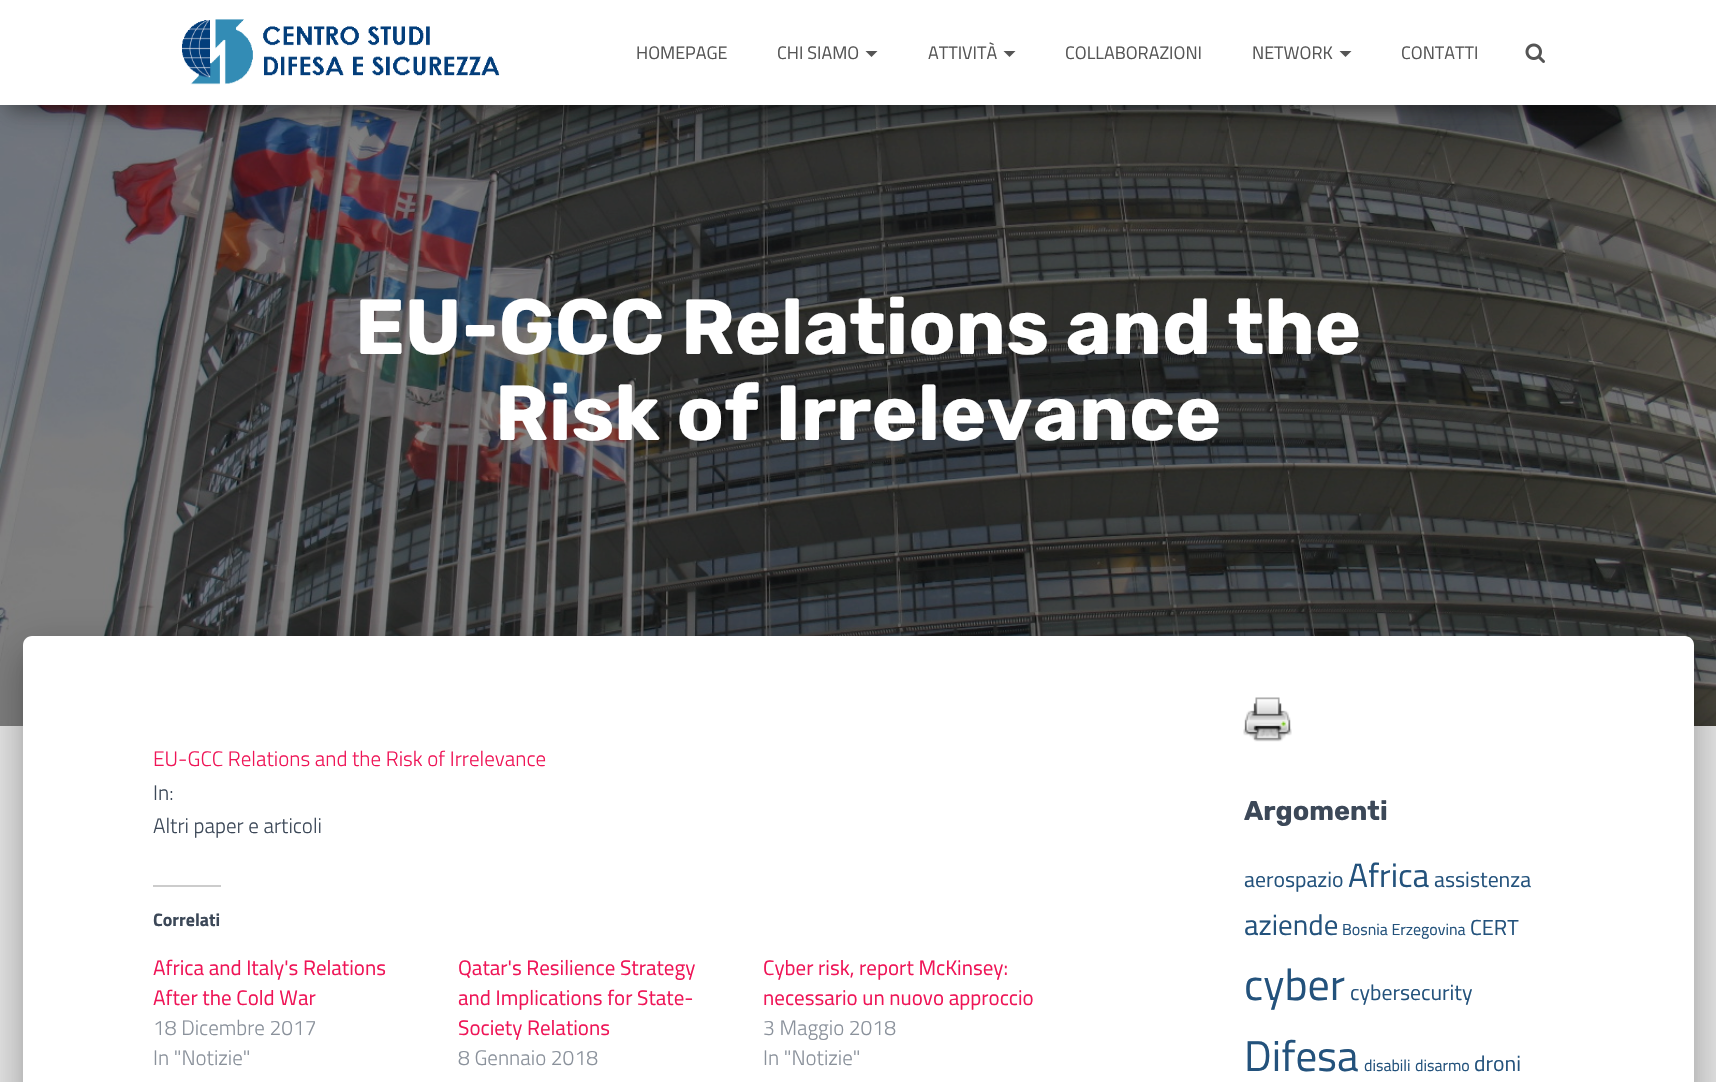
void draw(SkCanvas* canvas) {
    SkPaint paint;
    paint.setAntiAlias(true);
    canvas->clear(0xFFE5E5E5);
    canvas->drawImageRect(SkImages::DeferredFromEncodedData(SkData::MakeFromFileName("img3.png")), SkRect::MakeXYWH(0, 105, 1716, 621), SkSamplingOptions());
    paint.setColor(0x33000000);
    paint.setMaskFilter(SkMaskFilter::MakeBlur(kNormal_SkBlurStyle, 7.5f));
    canvas->drawRect(SkRect::MakeXYWH(8, 20, 1701, 90), paint);
    paint.setMaskFilter(nullptr);
    paint.setColor(0x1F000000);
    paint.setMaskFilter(SkMaskFilter::MakeBlur(kNormal_SkBlurStyle, 15));
    canvas->drawRect(SkRect::MakeXYWH(0, 5, 1716, 105), paint);
    paint.setMaskFilter(nullptr);
    paint.setColor(0x6B000000);
    paint.setMaskFilter(SkMaskFilter::MakeBlur(kNormal_SkBlurStyle, 15));
    canvas->drawRect(SkRect::MakeXYWH(18, 33, 1680, 69), paint);
    paint.setMaskFilter(nullptr);
    paint.setColor(0xFFFFFFFF);
    canvas->drawRect(SkRect::MakeXYWH(0, 0, 1716, 105), paint);
    canvas->drawImageRect(SkImages::DeferredFromEncodedData(SkData::MakeFromFileName("img1.png")), SkRect::MakeXYWH(182, 19, 318, 66), SkSamplingOptions());
    SkFont font1(fontMgr->matchFamilyStyle("Titillium Web", SkFontStyle::Normal()), 18);
    font1.setSubpixel(true);
    paint.setColor(0xFF555555);
    canvas->drawString("HOMEPAGE", 636, 59, font1, paint);
    canvas->drawString("CHI SIAMO", 777, 59, font1, paint);
    canvas->drawPath(SkPathBuilder().moveTo(865.5f, 51).lineTo(877.5f, 51).lineTo(871.5f, 57).close().detach(), paint);
    canvas->drawString("ATTIVITÀ", 928, 59, font1, paint);
    canvas->drawPath(SkPathBuilder().moveTo(1003.5f, 51).lineTo(1015.5f, 51).lineTo(1009.5f, 57).close().detach(), paint);
    canvas->drawString("COLLABORAZIONI", 1065, 59, font1, paint);
    canvas->drawString("NETWORK", 1252, 59, font1, paint);
    canvas->drawPath(SkPathBuilder().moveTo(1339.5f, 51).lineTo(1351.5f, 51).lineTo(1345.5f, 57).close().detach(), paint);
    canvas->drawString("CONTATTI", 1401, 59, font1, paint);
    canvas->drawImageRect(SkImages::DeferredFromEncodedData(SkData::MakeFromFileName("img2.png")), SkRect::MakeXYWH(1525, 43, 20, 20), SkSamplingOptions());
    SkFont font2(fontMgr->matchFamilyStyle("Rubik", SkFontStyle::Bold()), 78);
    font2.setSubpixel(true);
    paint.setColor(0xFFFFFFFF);
    canvas->drawString("EU-GCC Relations and the", 355, 354, font2, paint);
    canvas->drawString("Risk of Irrelevance", 495, 440, font2, paint);
    paint.setColor(0x33000000);
    paint.setMaskFilter(SkMaskFilter::MakeBlur(kNormal_SkBlurStyle, 7.5f));
    canvas->drawRoundRect(SkRect::MakeXYWH(30, 656, 1656, 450), 1.5f, 1.5f, paint);
    paint.setMaskFilter(nullptr);
    paint.setColor(0x1F000000);
    paint.setMaskFilter(SkMaskFilter::MakeBlur(kNormal_SkBlurStyle, 22.5f));
    canvas->drawRoundRect(SkRect::MakeXYWH(15, 638, 1686, 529), 17, 17, paint);
    paint.setMaskFilter(nullptr);
    paint.setColor(0x24000000);
    paint.setMaskFilter(SkMaskFilter::MakeBlur(kNormal_SkBlurStyle, 18));
    canvas->drawRoundRect(SkRect::MakeXYWH(20, 657, 1677, 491), 12, 12, paint);
    paint.setMaskFilter(nullptr);
    paint.setColor(0xFFFFFFFF);
    canvas->drawPath(SkPathBuilder().moveTo(32, 636).lineTo(1685, 636).cubicTo(1690, 636, 1694, 640, 1694, 645).lineTo(1694, 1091).lineTo(23, 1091).lineTo(23, 645).cubicTo(23, 640, 27, 636, 32, 636).close().detach(), paint);
    SkFont font3(fontMgr->matchFamilyStyle("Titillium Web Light", SkFontStyle(300, SkFontStyle::kNormal_Width, SkFontStyle::kUpright_Slant)), 21);
    font3.setSubpixel(true);
    paint.setColor(0xFFEF1557);
    canvas->drawString("EU-GCC Relations and the Risk of Irrelevance", 153, 766, font3, paint);
    paint.setColor(0xFF3C4858);
    canvas->drawString("In:", 153, 800, font3, paint);
    canvas->drawString("Altri paper e articoli", 153, 833, font3, paint);
    paint.setColor(0xFFCCCCCC);
    canvas->drawRect(SkRect::MakeXYWH(153, 885, 68, 2), paint);
    SkFont font4(fontMgr->matchFamilyStyle("Titillium Web", SkFontStyle::Bold()), 18);
    font4.setSubpixel(true);
    paint.setColor(0xFF3C4858);
    canvas->drawString("Correlati", 153, 926, font4, paint);
    SkFont font5(fontMgr->matchFamilyStyle("Titillium Web", SkFontStyle::Normal()), 21);
    font5.setSubpixel(true);
    paint.setColor(0xFFEF1557);
    canvas->drawString("Africa and Italy's Relations", 153, 975, font5, paint);
    canvas->drawString("After the Cold War", 153, 1005, font5, paint);
    paint.setColor(0xFF8A919B);
    canvas->drawString("18 Dicembre 2017", 153, 1035, font3, paint);
    canvas->drawString("In \"Notizie\"", 153, 1065, font3, paint);
    paint.setColor(0xFFEF1557);
    canvas->drawString("Qatar's Resilience Strategy", 458, 975, font5, paint);
    canvas->drawString("and Implications for State-", 458, 1005, font5, paint);
    canvas->drawString("Society Relations", 458, 1035, font5, paint);
    paint.setColor(0xFF8A919B);
    canvas->drawString("8 Gennaio 2018", 458, 1065, font3, paint);
    paint.setColor(0xFFEF1557);
    canvas->drawString("Cyber risk, report McKinsey:", 763, 975, font5, paint);
    canvas->drawString("necessario un nuovo approccio", 763, 1005, font5, paint);
    paint.setColor(0xFF8A919B);
    canvas->drawString("3 Maggio 2018", 763, 1035, font3, paint);
    canvas->drawString("In \"Notizie\"", 763, 1065, font3, paint);
    canvas->drawImageRect(SkImages::DeferredFromEncodedData(SkData::MakeFromFileName("img4.png")), SkRect::MakeXYWH(1243, 697, 49, 45), SkSamplingOptions());
    SkFont font6(fontMgr->matchFamilyStyle("Rubik", SkFontStyle::Bold()), 27);
    font6.setSubpixel(true);
    paint.setColor(0xFF3C4858);
    canvas->drawString("Argomenti", 1244, 820, font6, paint);
    SkFont font7(fontMgr->matchFamilyStyle("Titillium Web", SkFontStyle::Normal()), 21.75f);
    font7.setSubpixel(true);
    paint.setColor(0xFF23527C);
    canvas->drawString("aerospazio", 1244, 887, font7, paint);
    SkFont font8(fontMgr->matchFamilyStyle("Titillium Web", SkFontStyle::Normal()), 33.5f);
    font8.setSubpixel(true);
    canvas->drawString("Africa", 1348, 887, font8, paint);
    canvas->drawString("assistenza", 1434, 887, font7, paint);
    SkFont font9(fontMgr->matchFamilyStyle("Titillium Web", SkFontStyle::Normal()), 29);
    font9.setSubpixel(true);
    canvas->drawString("aziende", 1244, 935, font9, paint);
    SkFont font10(fontMgr->matchFamilyStyle("Titillium Web", SkFontStyle::Normal()), 16);
    font10.setSubpixel(true);
    canvas->drawString("Bosnia Erzegovina", 1342, 935, font10, paint);
    canvas->drawString("CERT", 1470, 935, font7, paint);
    SkFont font11(fontMgr->matchFamilyStyle("Titillium Web", SkFontStyle::Normal()), 44);
    font11.setSubpixel(true);
    canvas->drawString("cyber", 1244, 1000, font11, paint);
    canvas->drawString("cybersecurity", 1350, 1000, font7, paint);
    SkFont font12(fontMgr->matchFamilyStyle("Titillium Web", SkFontStyle::Normal()), 43);
    font12.setSubpixel(true);
    canvas->drawString("Difesa", 1244, 1071, font12, paint);
    canvas->drawString("disabili", 1364, 1071, font10, paint);
    canvas->drawString("disarmo", 1415, 1071, font10, paint);
    canvas->drawString("droni", 1474, 1071, font7, paint);
}
